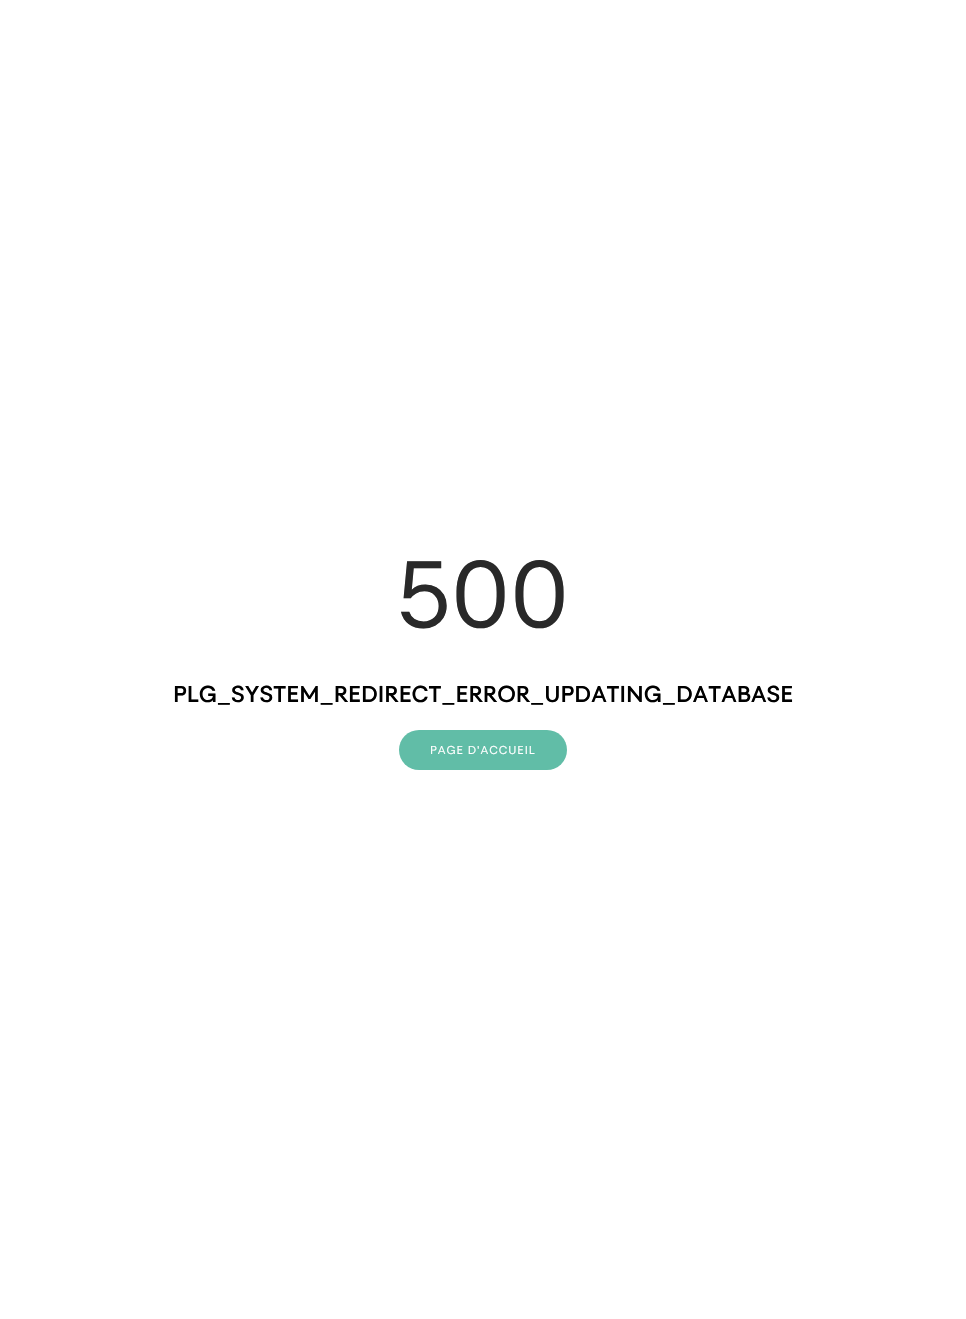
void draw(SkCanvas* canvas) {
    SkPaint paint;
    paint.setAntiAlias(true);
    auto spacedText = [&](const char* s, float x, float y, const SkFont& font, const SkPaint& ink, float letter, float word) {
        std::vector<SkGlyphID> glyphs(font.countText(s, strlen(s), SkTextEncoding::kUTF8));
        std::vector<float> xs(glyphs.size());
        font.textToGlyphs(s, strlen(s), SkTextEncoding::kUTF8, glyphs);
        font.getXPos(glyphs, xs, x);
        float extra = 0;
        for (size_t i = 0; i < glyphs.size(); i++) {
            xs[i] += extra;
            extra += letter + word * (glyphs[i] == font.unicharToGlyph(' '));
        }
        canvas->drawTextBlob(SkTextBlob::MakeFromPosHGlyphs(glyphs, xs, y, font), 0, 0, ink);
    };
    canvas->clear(0xFFFFFFFF);
    SkFont font1(fontMgr->matchFamilyStyle("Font", SkFontStyle::Normal()), 90);
    font1.setSubpixel(true);
    paint.setColor(0xFF292929);
    canvas->drawString("500", 397, 627, font1, paint);
    SkFont font2(fontMgr->matchFamilyStyle("Font", SkFontStyle(500, SkFontStyle::kNormal_Width, SkFontStyle::kUpright_Slant)), 22);
    font2.setSubpixel(true);
    paint.setColor(0xFF000000);
    canvas->drawString("PLG_SYSTEM_REDIRECT_ERROR_UPDATING_DATABASE", 173, 702, font2, paint);
    paint.setColor(0xFF61BDA7);
    canvas->drawRoundRect(SkRect::MakeXYWH(399, 730, 168, 40), 20, 20, paint);
    SkFont font3(fontMgr->matchFamilyStyle("Font", SkFontStyle::Normal()), 11);
    font3.setSubpixel(true);
    paint.setColor(0xFFFFFFFF);
    spacedText("PAGE D'ACCUEIL", 430, 754, font3, paint, 1, 0);
}
